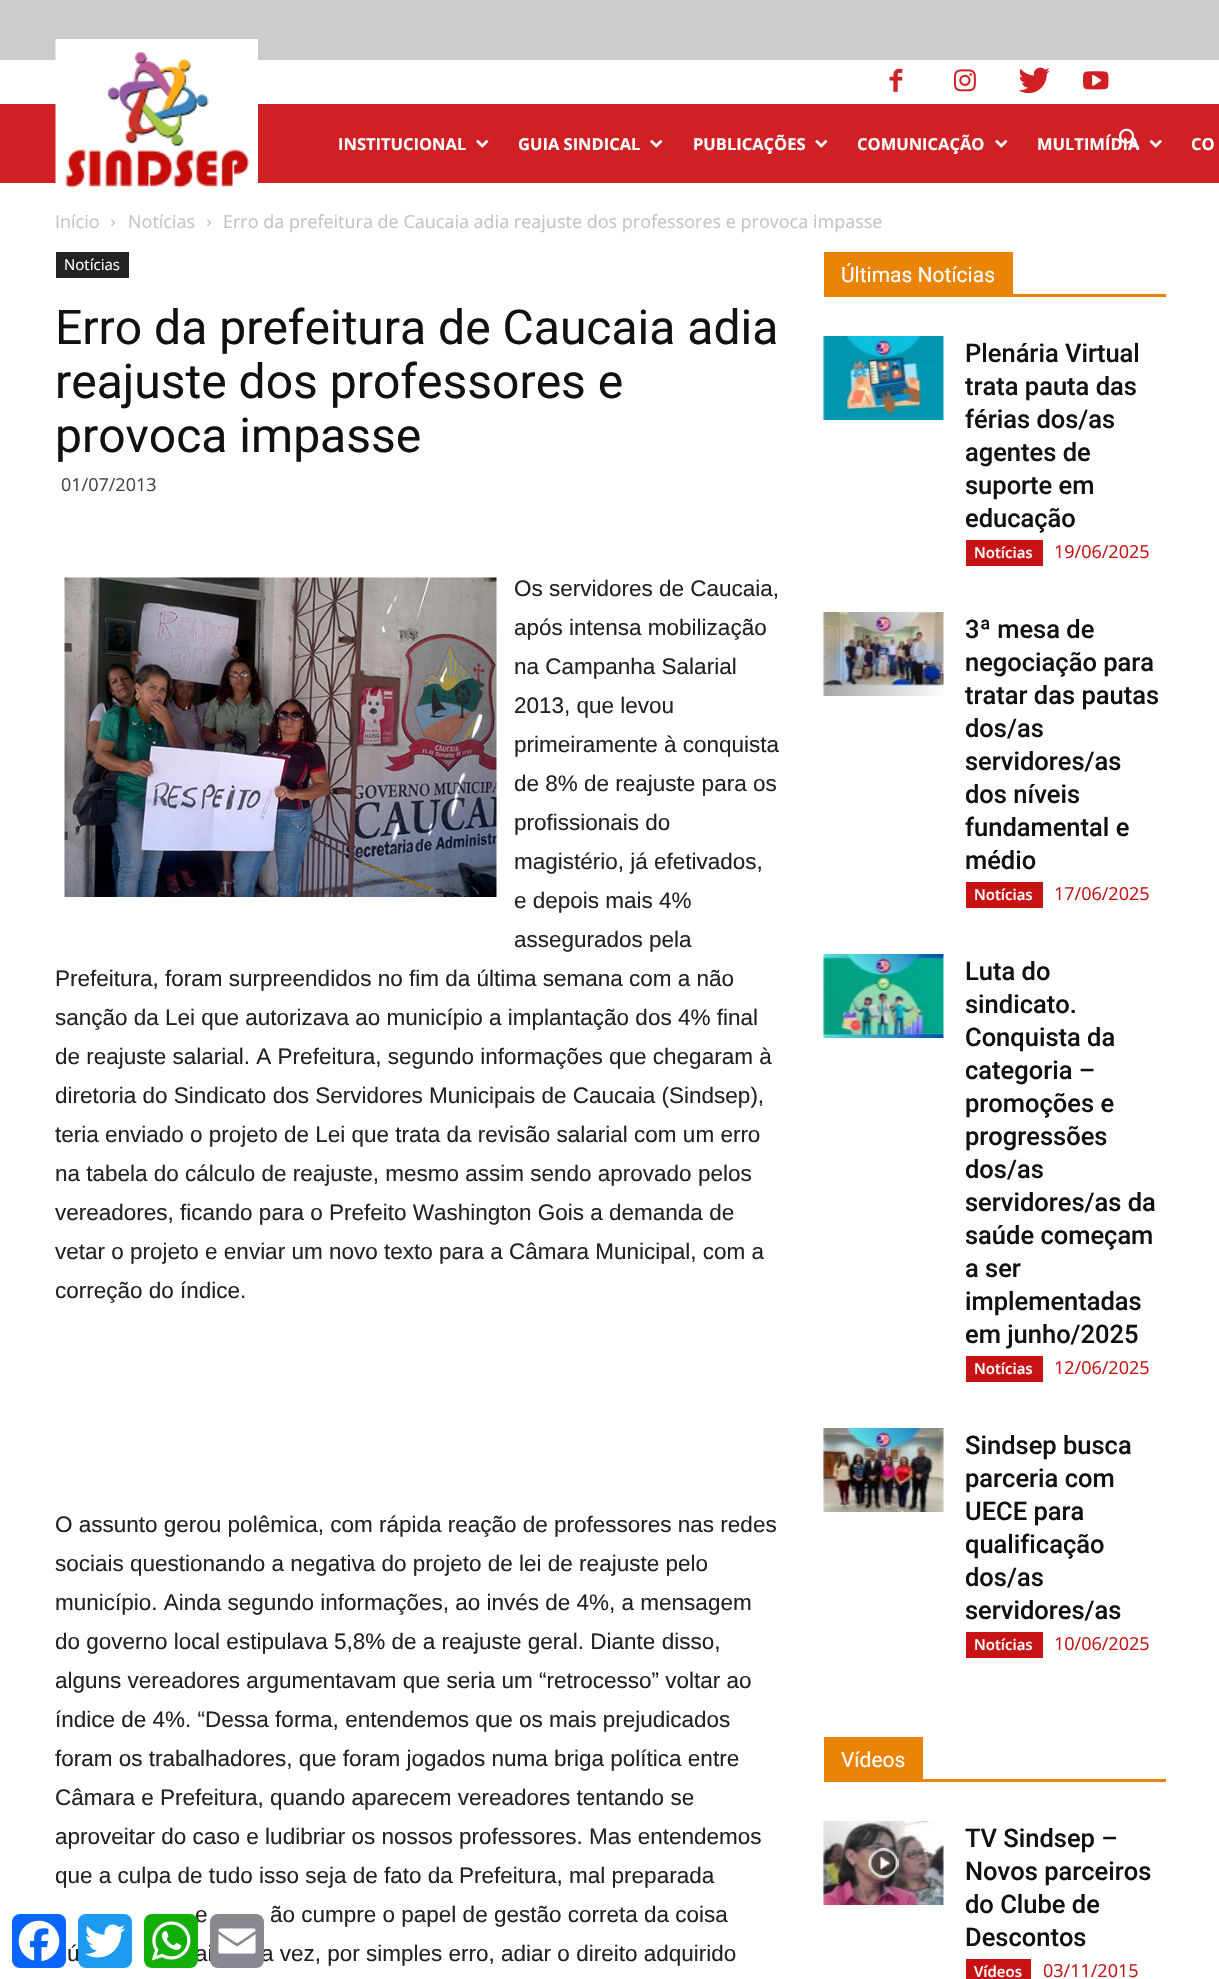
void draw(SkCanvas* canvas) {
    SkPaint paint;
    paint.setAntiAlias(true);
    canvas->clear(0xFFFFFFFF);
    paint.setColor(0xFFCCCCCC);
    canvas->drawRect(SkRect::MakeXYWH(0, 0, 1219, 60), paint);
    paint.setColor(0xFFD02024);
    canvas->drawRect(SkRect::MakeXYWH(0, 104, 1219, 79), paint);
    canvas->drawImageRect(SkImages::DeferredFromEncodedData(SkData::MakeFromFileName("img1.png")), SkRect::MakeXYWH(55, 39, 203, 149), SkSamplingOptions());
    canvas->drawImageRect(SkImages::DeferredFromEncodedData(SkData::MakeFromFileName("img2.png")), SkRect::MakeXYWH(889, 68, 14, 24), SkSamplingOptions());
    canvas->drawImageRect(SkImages::DeferredFromEncodedData(SkData::MakeFromFileName("img3.png")), SkRect::MakeXYWH(954, 69, 22, 23), SkSamplingOptions());
    canvas->drawImageRect(SkImages::DeferredFromEncodedData(SkData::MakeFromFileName("img4.png")), SkRect::MakeXYWH(1018, 67, 32, 27), SkSamplingOptions());
    canvas->drawImageRect(SkImages::DeferredFromEncodedData(SkData::MakeFromFileName("img5.png")), SkRect::MakeXYWH(1083, 71, 26, 19), SkSamplingOptions());
    SkFont font1(fontMgr->matchFamilyStyle("Open Sans", SkFontStyle::Bold()), 16.5f);
    font1.setSubpixel(true);
    paint.setColor(0xFFFFFFFF);
    canvas->drawString("MULTIMÍDIA", 1037, 150, font1, paint);
    canvas->drawImageRect(SkImages::DeferredFromEncodedData(SkData::MakeFromFileName("img6.png")), SkRect::MakeXYWH(1119, 128, 20, 21), SkSamplingOptions());
    canvas->drawString("INSTITUCIONAL", 338, 150, font1, paint);
    canvas->drawImageRect(SkImages::DeferredFromEncodedData(SkData::MakeFromFileName("img7.png")), SkRect::MakeXYWH(476, 139, 13, 9), SkSamplingOptions());
    canvas->drawString("GUIA SINDICAL", 518, 150, font1, paint);
    canvas->drawImageRect(SkImages::DeferredFromEncodedData(SkData::MakeFromFileName("img7.png")), SkRect::MakeXYWH(650, 139, 13, 9), SkSamplingOptions());
    canvas->drawString("PUBLICAÇÕES", 693, 150, font1, paint);
    canvas->drawImageRect(SkImages::DeferredFromEncodedData(SkData::MakeFromFileName("img7.png")), SkRect::MakeXYWH(815, 139, 13, 9), SkSamplingOptions());
    canvas->drawString("COMUNICAÇÃO", 857, 150, font1, paint);
    canvas->drawImageRect(SkImages::DeferredFromEncodedData(SkData::MakeFromFileName("img7.png")), SkRect::MakeXYWH(995, 139, 13, 9), SkSamplingOptions());
    canvas->drawImageRect(SkImages::DeferredFromEncodedData(SkData::MakeFromFileName("img8.png")), SkRect::MakeXYWH(1149, 139, 13, 9), SkSamplingOptions());
    canvas->drawString("CO", 1191, 150, font1, paint);
    SkFont font2(fontMgr->matchFamilyStyle("Open Sans", SkFontStyle::Normal()), 18);
    font2.setSubpixel(true);
    paint.setColor(0xFFC3C3C3);
    canvas->drawString("Início", 55, 228, font2, paint);
    canvas->drawImageRect(SkImages::DeferredFromEncodedData(SkData::MakeFromFileName("img9.png")), SkRect::MakeXYWH(111, 219, 4, 8), SkSamplingOptions());
    canvas->drawString("Notícias", 128, 228, font2, paint);
    canvas->drawImageRect(SkImages::DeferredFromEncodedData(SkData::MakeFromFileName("img9.png")), SkRect::MakeXYWH(207, 219, 4, 8), SkSamplingOptions());
    canvas->drawString("Erro da prefeitura de Caucaia adia reajuste dos professores e provoca impasse", 223, 228, font2, paint);
    paint.setColor(0xFF222222);
    canvas->drawRect(SkRect::MakeXYWH(56, 252, 73, 26), paint);
    SkFont font3(fontMgr->matchFamilyStyle("Open Sans", SkFontStyle::Normal()), 15);
    font3.setSubpixel(true);
    paint.setColor(0xFFFFFFFF);
    canvas->drawString("Notícias", 64, 270, font3, paint);
    SkFont font4(fontMgr->matchFamilyStyle("Roboto", SkFontStyle::Normal()), 48);
    font4.setSubpixel(true);
    paint.setColor(0xFF111111);
    canvas->drawString("Erro da prefeitura de Caucaia adia", 55, 344, font4, paint);
    canvas->drawString("reajuste dos professores e", 55, 398, font4, paint);
    canvas->drawString("provoca impasse", 55, 452, font4, paint);
    paint.setColor(0xFF444444);
    canvas->drawString("01/07/2013", 61, 491, font2, paint);
    canvas->drawImageRect(SkImages::DeferredFromEncodedData(SkData::MakeFromFileName("img10.png")), SkRect::MakeXYWH(64, 577, 433, 320), SkSamplingOptions());
    SkFont font5(fontMgr->matchFamilyStyle("Liberation Sans", SkFontStyle::Normal()), 22.5f);
    font5.setSubpixel(true);
    paint.setColor(0xFF222222);
    canvas->drawString("Os servidores de Caucaia,", 514, 596, font5, paint);
    canvas->drawString("após intensa mobilização", 514, 635, font5, paint);
    canvas->drawString("na Campanha Salarial", 514, 674, font5, paint);
    canvas->drawString("2013, que levou", 514, 713, font5, paint);
    canvas->drawString("primeiramente à conquista", 514, 752, font5, paint);
    canvas->drawString("de 8% de reajuste para os", 514, 791, font5, paint);
    canvas->drawString("profissionais do", 514, 830, font5, paint);
    canvas->drawString("magistério, já efetivados,", 514, 869, font5, paint);
    canvas->drawString("e depois mais 4%", 514, 908, font5, paint);
    canvas->drawString("assegurados pela", 514, 947, font5, paint);
    canvas->drawString("Prefeitura, foram surpreendidos no fim da última semana com a não", 55, 986, font5, paint);
    canvas->drawString("sanção da Lei que autorizava ao município a implantação dos 4% final", 55, 1025, font5, paint);
    canvas->drawString("de reajuste salarial. A Prefeitura, segundo informações que chegaram à", 55, 1064, font5, paint);
    canvas->drawString("diretoria do Sindicato dos Servidores Municipais de Caucaia (Sindsep),", 55, 1103, font5, paint);
    canvas->drawString("teria enviado o projeto de Lei que trata da revisão salarial com um erro", 55, 1142, font5, paint);
    canvas->drawString("na tabela do cálculo de reajuste, mesmo assim sendo aprovado pelos", 55, 1181, font5, paint);
    canvas->drawString("vereadores, ficando para o Prefeito Washington Gois a demanda de", 55, 1220, font5, paint);
    canvas->drawString("vetar o projeto e enviar um novo texto para a Câmara Municipal, com a", 55, 1259, font5, paint);
    canvas->drawString("correção do índice.", 55, 1298, font5, paint);
    canvas->drawString("O assunto gerou polêmica, com rápida reação de professores nas redes", 55, 1532, font5, paint);
    canvas->drawString("sociais questionando a negativa do projeto de lei de reajuste pelo", 55, 1571, font5, paint);
    canvas->drawString("município. Ainda segundo informações, ao invés de 4%, a mensagem", 55, 1610, font5, paint);
    canvas->drawString("do governo local estipulava 5,8% de a reajuste geral. Diante disso,", 55, 1649, font5, paint);
    canvas->drawString("alguns vereadores argumentavam que seria um “retrocesso” voltar ao", 55, 1688, font5, paint);
    canvas->drawString("índice de 4%. “Dessa forma, entendemos que os mais prejudicados", 55, 1727, font5, paint);
    canvas->drawString("foram os trabalhadores, que foram jogados numa briga política entre", 55, 1766, font5, paint);
    canvas->drawString("Câmara e Prefeitura, quando aparecem vereadores tentando se", 55, 1805, font5, paint);
    canvas->drawString("aproveitar do caso e ludibriar os nossos professores. Mas entendemos", 55, 1844, font5, paint);
    canvas->drawString("que a culpa de tudo isso seja de fato da Prefeitura, mal preparada", 55, 1883, font5, paint);
    canvas->drawString("e", 195, 1922, font5, paint);
    canvas->drawString("ão cumpre o papel de gestão correta da coisa", 270, 1922, font5, paint);
    canvas->drawString("ú", 67, 1961, font5, paint);
    canvas->drawString("ai", 195, 1961, font5, paint);
    canvas->drawString("a vez, por simples erro, adiar o direito adquirido", 261, 1961, font5, paint);
    paint.setColor(0xFFEA8406);
    canvas->drawRect(SkRect::MakeXYWH(824, 294, 342, 3), paint);
    canvas->drawRect(SkRect::MakeXYWH(824, 252, 189, 42), paint);
    SkFont font6(fontMgr->matchFamilyStyle("Roboto", SkFontStyle::Normal()), 21);
    font6.setSubpixel(true);
    paint.setColor(0xFFFFFFFF);
    canvas->drawString("Últimas Notícias", 841, 282, font6, paint);
    canvas->drawImageRect(SkImages::DeferredFromEncodedData(SkData::MakeFromFileName("img11.png")), SkRect::MakeXYWH(823, 336, 121, 84), SkSamplingOptions());
    SkFont font7(fontMgr->matchFamilyStyle("Roboto", SkFontStyle(500, SkFontStyle::kNormal_Width, SkFontStyle::kUpright_Slant)), 25.5f);
    font7.setSubpixel(true);
    paint.setColor(0xFF111111);
    canvas->drawString("Plenária Virtual", 965, 362, font7, paint);
    canvas->drawString("trata pauta das", 965, 395, font7, paint);
    canvas->drawString("férias dos/as", 965, 428, font7, paint);
    canvas->drawString("agentes de", 965, 461, font7, paint);
    canvas->drawString("suporte em", 965, 494, font7, paint);
    canvas->drawString("educação", 965, 527, font7, paint);
    paint.setColor(0xFFC71313);
    canvas->drawRect(SkRect::MakeXYWH(966, 540, 77, 26), paint);
    SkFont font8(fontMgr->matchFamilyStyle("Open Sans", SkFontStyle(600, SkFontStyle::kNormal_Width, SkFontStyle::kUpright_Slant)), 15);
    font8.setSubpixel(true);
    paint.setColor(0xFFFFFFFF);
    canvas->drawString("Notícias", 974, 558, font8, paint);
    paint.setColor(0xFFC71313);
    canvas->drawString("19/06/2025", 1054, 558, font2, paint);
    canvas->drawImageRect(SkImages::DeferredFromEncodedData(SkData::MakeFromFileName("img12.png")), SkRect::MakeXYWH(823, 612, 121, 84), SkSamplingOptions());
    paint.setColor(0xFF111111);
    canvas->drawString("3ª mesa de", 965, 638, font7, paint);
    canvas->drawString("negociação para", 965, 671, font7, paint);
    canvas->drawString("tratar das pautas", 965, 704, font7, paint);
    canvas->drawString("dos/as", 965, 737, font7, paint);
    canvas->drawString("servidores/as", 965, 770, font7, paint);
    canvas->drawString("dos níveis", 965, 803, font7, paint);
    canvas->drawString("fundamental e", 965, 836, font7, paint);
    canvas->drawString("médio", 965, 869, font7, paint);
    paint.setColor(0xFFC71313);
    canvas->drawRect(SkRect::MakeXYWH(966, 882, 77, 26), paint);
    paint.setColor(0xFFFFFFFF);
    canvas->drawString("Notícias", 974, 900, font8, paint);
    paint.setColor(0xFFC71313);
    canvas->drawString("17/06/2025", 1054, 900, font2, paint);
    canvas->drawImageRect(SkImages::DeferredFromEncodedData(SkData::MakeFromFileName("img13.png")), SkRect::MakeXYWH(823, 954, 121, 84), SkSamplingOptions());
    paint.setColor(0xFF111111);
    canvas->drawString("Luta do", 965, 980, font7, paint);
    canvas->drawString("sindicato.", 965, 1013, font7, paint);
    canvas->drawString("Conquista da", 965, 1046, font7, paint);
    canvas->drawString("categoria –", 965, 1079, font7, paint);
    canvas->drawString("promoções e", 965, 1112, font7, paint);
    canvas->drawString("progressões", 965, 1145, font7, paint);
    canvas->drawString("dos/as", 965, 1178, font7, paint);
    canvas->drawString("servidores/as da", 965, 1211, font7, paint);
    canvas->drawString("saúde começam", 965, 1244, font7, paint);
    canvas->drawString("a ser", 965, 1277, font7, paint);
    canvas->drawString("implementadas", 965, 1310, font7, paint);
    canvas->drawString("em junho/2025", 965, 1343, font7, paint);
    paint.setColor(0xFFC71313);
    canvas->drawRect(SkRect::MakeXYWH(966, 1356, 77, 26), paint);
    paint.setColor(0xFFFFFFFF);
    canvas->drawString("Notícias", 974, 1374, font8, paint);
    paint.setColor(0xFFC71313);
    canvas->drawString("12/06/2025", 1054, 1374, font2, paint);
    canvas->drawImageRect(SkImages::DeferredFromEncodedData(SkData::MakeFromFileName("img14.png")), SkRect::MakeXYWH(823, 1428, 121, 84), SkSamplingOptions());
    paint.setColor(0xFF111111);
    canvas->drawString("Sindsep busca", 965, 1454, font7, paint);
    canvas->drawString("parceria com", 965, 1487, font7, paint);
    canvas->drawString("UECE para", 965, 1520, font7, paint);
    canvas->drawString("qualificação", 965, 1553, font7, paint);
    canvas->drawString("dos/as", 965, 1586, font7, paint);
    canvas->drawString("servidores/as", 965, 1619, font7, paint);
    paint.setColor(0xFFC71313);
    canvas->drawRect(SkRect::MakeXYWH(966, 1632, 77, 26), paint);
    paint.setColor(0xFFFFFFFF);
    canvas->drawString("Notícias", 974, 1650, font8, paint);
    paint.setColor(0xFFC71313);
    canvas->drawString("10/06/2025", 1054, 1650, font2, paint);
    paint.setColor(0xFFEA8406);
    canvas->drawRect(SkRect::MakeXYWH(824, 1779, 342, 3), paint);
    canvas->drawRect(SkRect::MakeXYWH(824, 1737, 99, 42), paint);
    paint.setColor(0xFFFFFFFF);
    canvas->drawString("Vídeos", 841, 1767, font6, paint);
    canvas->drawImageRect(SkImages::DeferredFromEncodedData(SkData::MakeFromFileName("img15.png")), SkRect::MakeXYWH(823, 1821, 121, 84), SkSamplingOptions());
    canvas->drawImageRect(SkImages::DeferredFromEncodedData(SkData::MakeFromFileName("img16.png")), SkRect::MakeXYWH(868, 1848, 31, 30), SkSamplingOptions());
    paint.setColor(0xFF111111);
    canvas->drawString("TV Sindsep –", 965, 1847, font7, paint);
    canvas->drawString("Novos parceiros", 965, 1880, font7, paint);
    canvas->drawString("do Clube de", 965, 1913, font7, paint);
    canvas->drawString("Descontos", 965, 1946, font7, paint);
    paint.setColor(0xFFC71313);
    canvas->drawRect(SkRect::MakeXYWH(966, 1959, 65, 20), paint);
    paint.setColor(0xFFFFFFFF);
    canvas->drawString("Vídeos", 974, 1977, font8, paint);
    paint.setColor(0xFFC71313);
    canvas->drawString("03/11/2015", 1043, 1977, font2, paint);
    paint.setColor(0xFF0866FF);
    canvas->drawRoundRect(SkRect::MakeXYWH(12, 1914, 54, 54), 8, 8, paint);
    canvas->drawImageRect(SkImages::DeferredFromEncodedData(SkData::MakeFromFileName("img17.png")), SkRect::MakeXYWH(18, 1920, 42, 42), SkSamplingOptions());
    paint.setColor(0xFF1D9BF0);
    canvas->drawRoundRect(SkRect::MakeXYWH(78, 1914, 54, 54), 8, 8, paint);
    canvas->drawImageRect(SkImages::DeferredFromEncodedData(SkData::MakeFromFileName("img18.png")), SkRect::MakeXYWH(85, 1924, 41, 34), SkSamplingOptions());
    paint.setColor(0xFF12AF0A);
    canvas->drawRoundRect(SkRect::MakeXYWH(144, 1914, 54, 54), 8, 8, paint);
    canvas->drawImageRect(SkImages::DeferredFromEncodedData(SkData::MakeFromFileName("img19.png")), SkRect::MakeXYWH(151, 1921, 40, 40), SkSamplingOptions());
    paint.setColor(0xFF888990);
    canvas->drawRoundRect(SkRect::MakeXYWH(210, 1914, 54, 54), 8, 8, paint);
    canvas->drawImageRect(SkImages::DeferredFromEncodedData(SkData::MakeFromFileName("img20.png")), SkRect::MakeXYWH(218, 1928, 38, 26), SkSamplingOptions());
}
